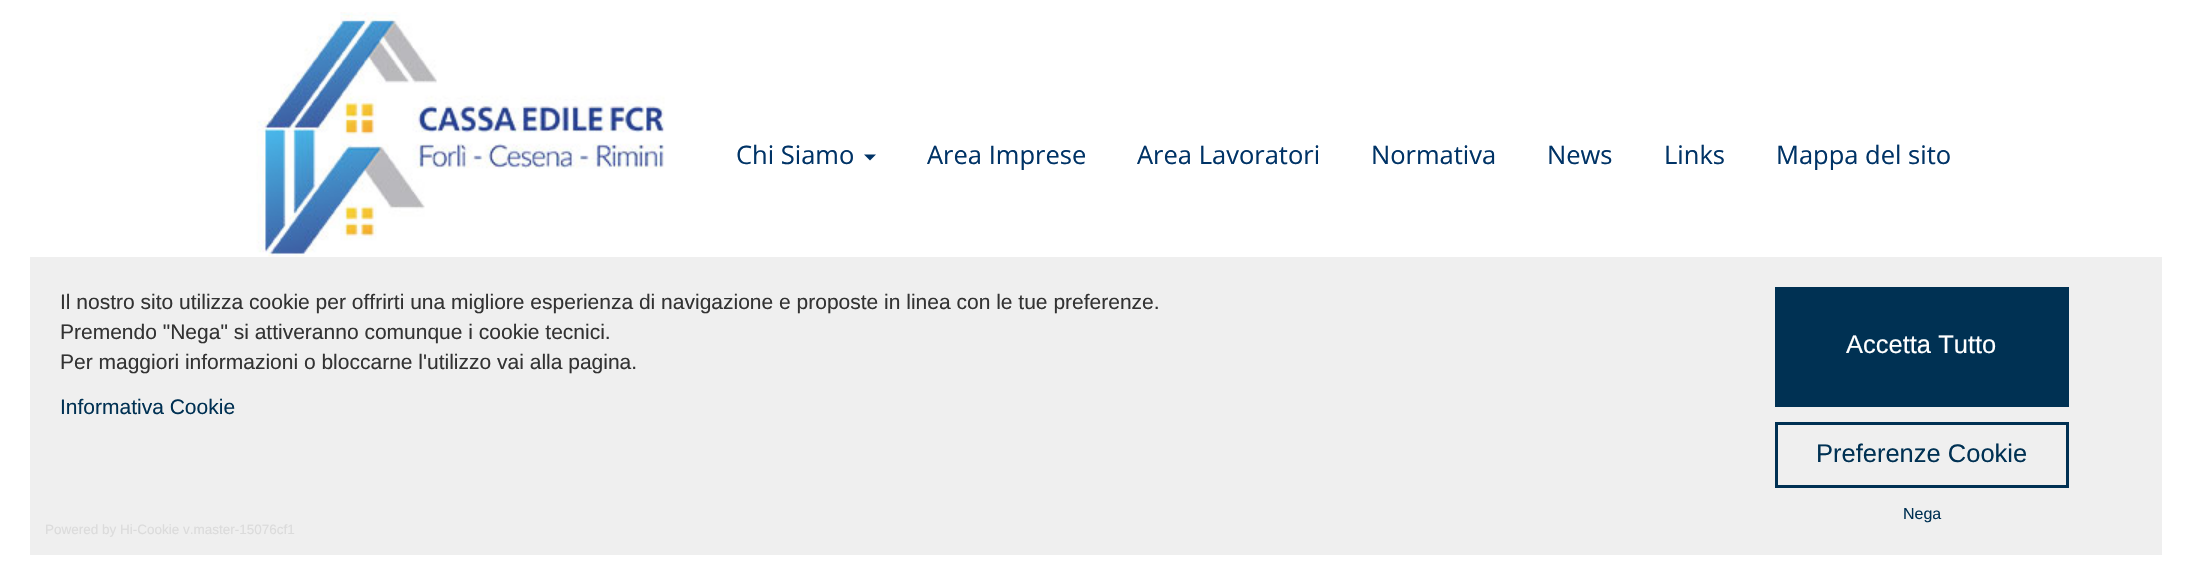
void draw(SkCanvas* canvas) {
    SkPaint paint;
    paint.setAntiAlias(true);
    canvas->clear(0xFFFFFFFF);
    canvas->drawImageRect(SkImages::DeferredFromEncodedData(SkData::MakeFromFileName("img1.png")), SkRect::MakeXYWH(256, 12, 409, 245), SkSamplingOptions());
    SkFont font1(fontMgr->matchFamilyStyle("Open Sans", SkFontStyle::Normal()), 25.5f);
    font1.setSubpixel(true);
    paint.setColor(0xFF003366);
    canvas->drawString("Chi Siamo", 736, 164, font1, paint);
    canvas->drawPath(SkPathBuilder().moveTo(864, 154.5f).lineTo(876, 154.5f).lineTo(870, 160.5f).close().detach(), paint);
    canvas->drawString("Area Imprese", 927, 164, font1, paint);
    canvas->drawString("Area Lavoratori", 1137, 164, font1, paint);
    canvas->drawString("Normativa", 1371, 164, font1, paint);
    canvas->drawString("News", 1547, 164, font1, paint);
    canvas->drawString("Links", 1664, 164, font1, paint);
    canvas->drawString("Mappa del sito", 1776, 164, font1, paint);
    paint.setColor(0xFFEFEFEF);
    canvas->drawRect(SkRect::MakeXYWH(30, 257, 2132, 298), paint);
    SkFont font2(fontMgr->matchFamilyStyle("Liberation Sans", SkFontStyle::Normal()), 21);
    font2.setSubpixel(true);
    paint.setColor(0xFF333333);
    canvas->drawString("Il nostro sito utilizza cookie per offrirti una migliore esperienza di navigazione e proposte in linea con le tue preferenze.", 60, 309, font2, paint);
    canvas->drawString("Premendo \"Nega\" si attiveranno comunque i cookie tecnici.", 60, 339, font2, paint);
    canvas->drawString("Per maggiori informazioni o bloccarne l'utilizzo vai alla pagina.", 60, 369, font2, paint);
    paint.setColor(0xFF003153);
    canvas->drawString("Informativa Cookie", 60, 414, font2, paint);
    canvas->drawRect(SkRect::MakeXYWH(1775, 287, 294, 120), paint);
    SkFont font3(fontMgr->matchFamilyStyle("Liberation Sans", SkFontStyle::Normal()), 25.5f);
    font3.setSubpixel(true);
    paint.setColor(0xFFFFFFFF);
    canvas->drawString("Accetta Tutto", 1846, 353, font3, paint);
    paint.setStyle(SkPaint::kStroke_Style);
    paint.setStrokeWidth(3);
    paint.setColor(0xFF003153);
    canvas->drawRect(SkRect::MakeXYWH(1776.5f, 423.5f, 291, 63), paint);
    paint.setStyle(SkPaint::kFill_Style);
    canvas->drawString("Preferenze Cookie", 1816, 462, font3, paint);
    SkFont font4(fontMgr->matchFamilyStyle("Liberation Sans", SkFontStyle::Normal()), 16);
    font4.setSubpixel(true);
    canvas->drawString("Nega", 1903, 519, font4, paint);
    SkFont font5(fontMgr->matchFamilyStyle("Liberation Sans", SkFontStyle::Normal()), 13.5f);
    font5.setSubpixel(true);
    paint.setColor(0xFFDBDBDB);
    canvas->drawString("Powered by Hi-Cookie v.master-15076cf1", 45, 534, font5, paint);
}
